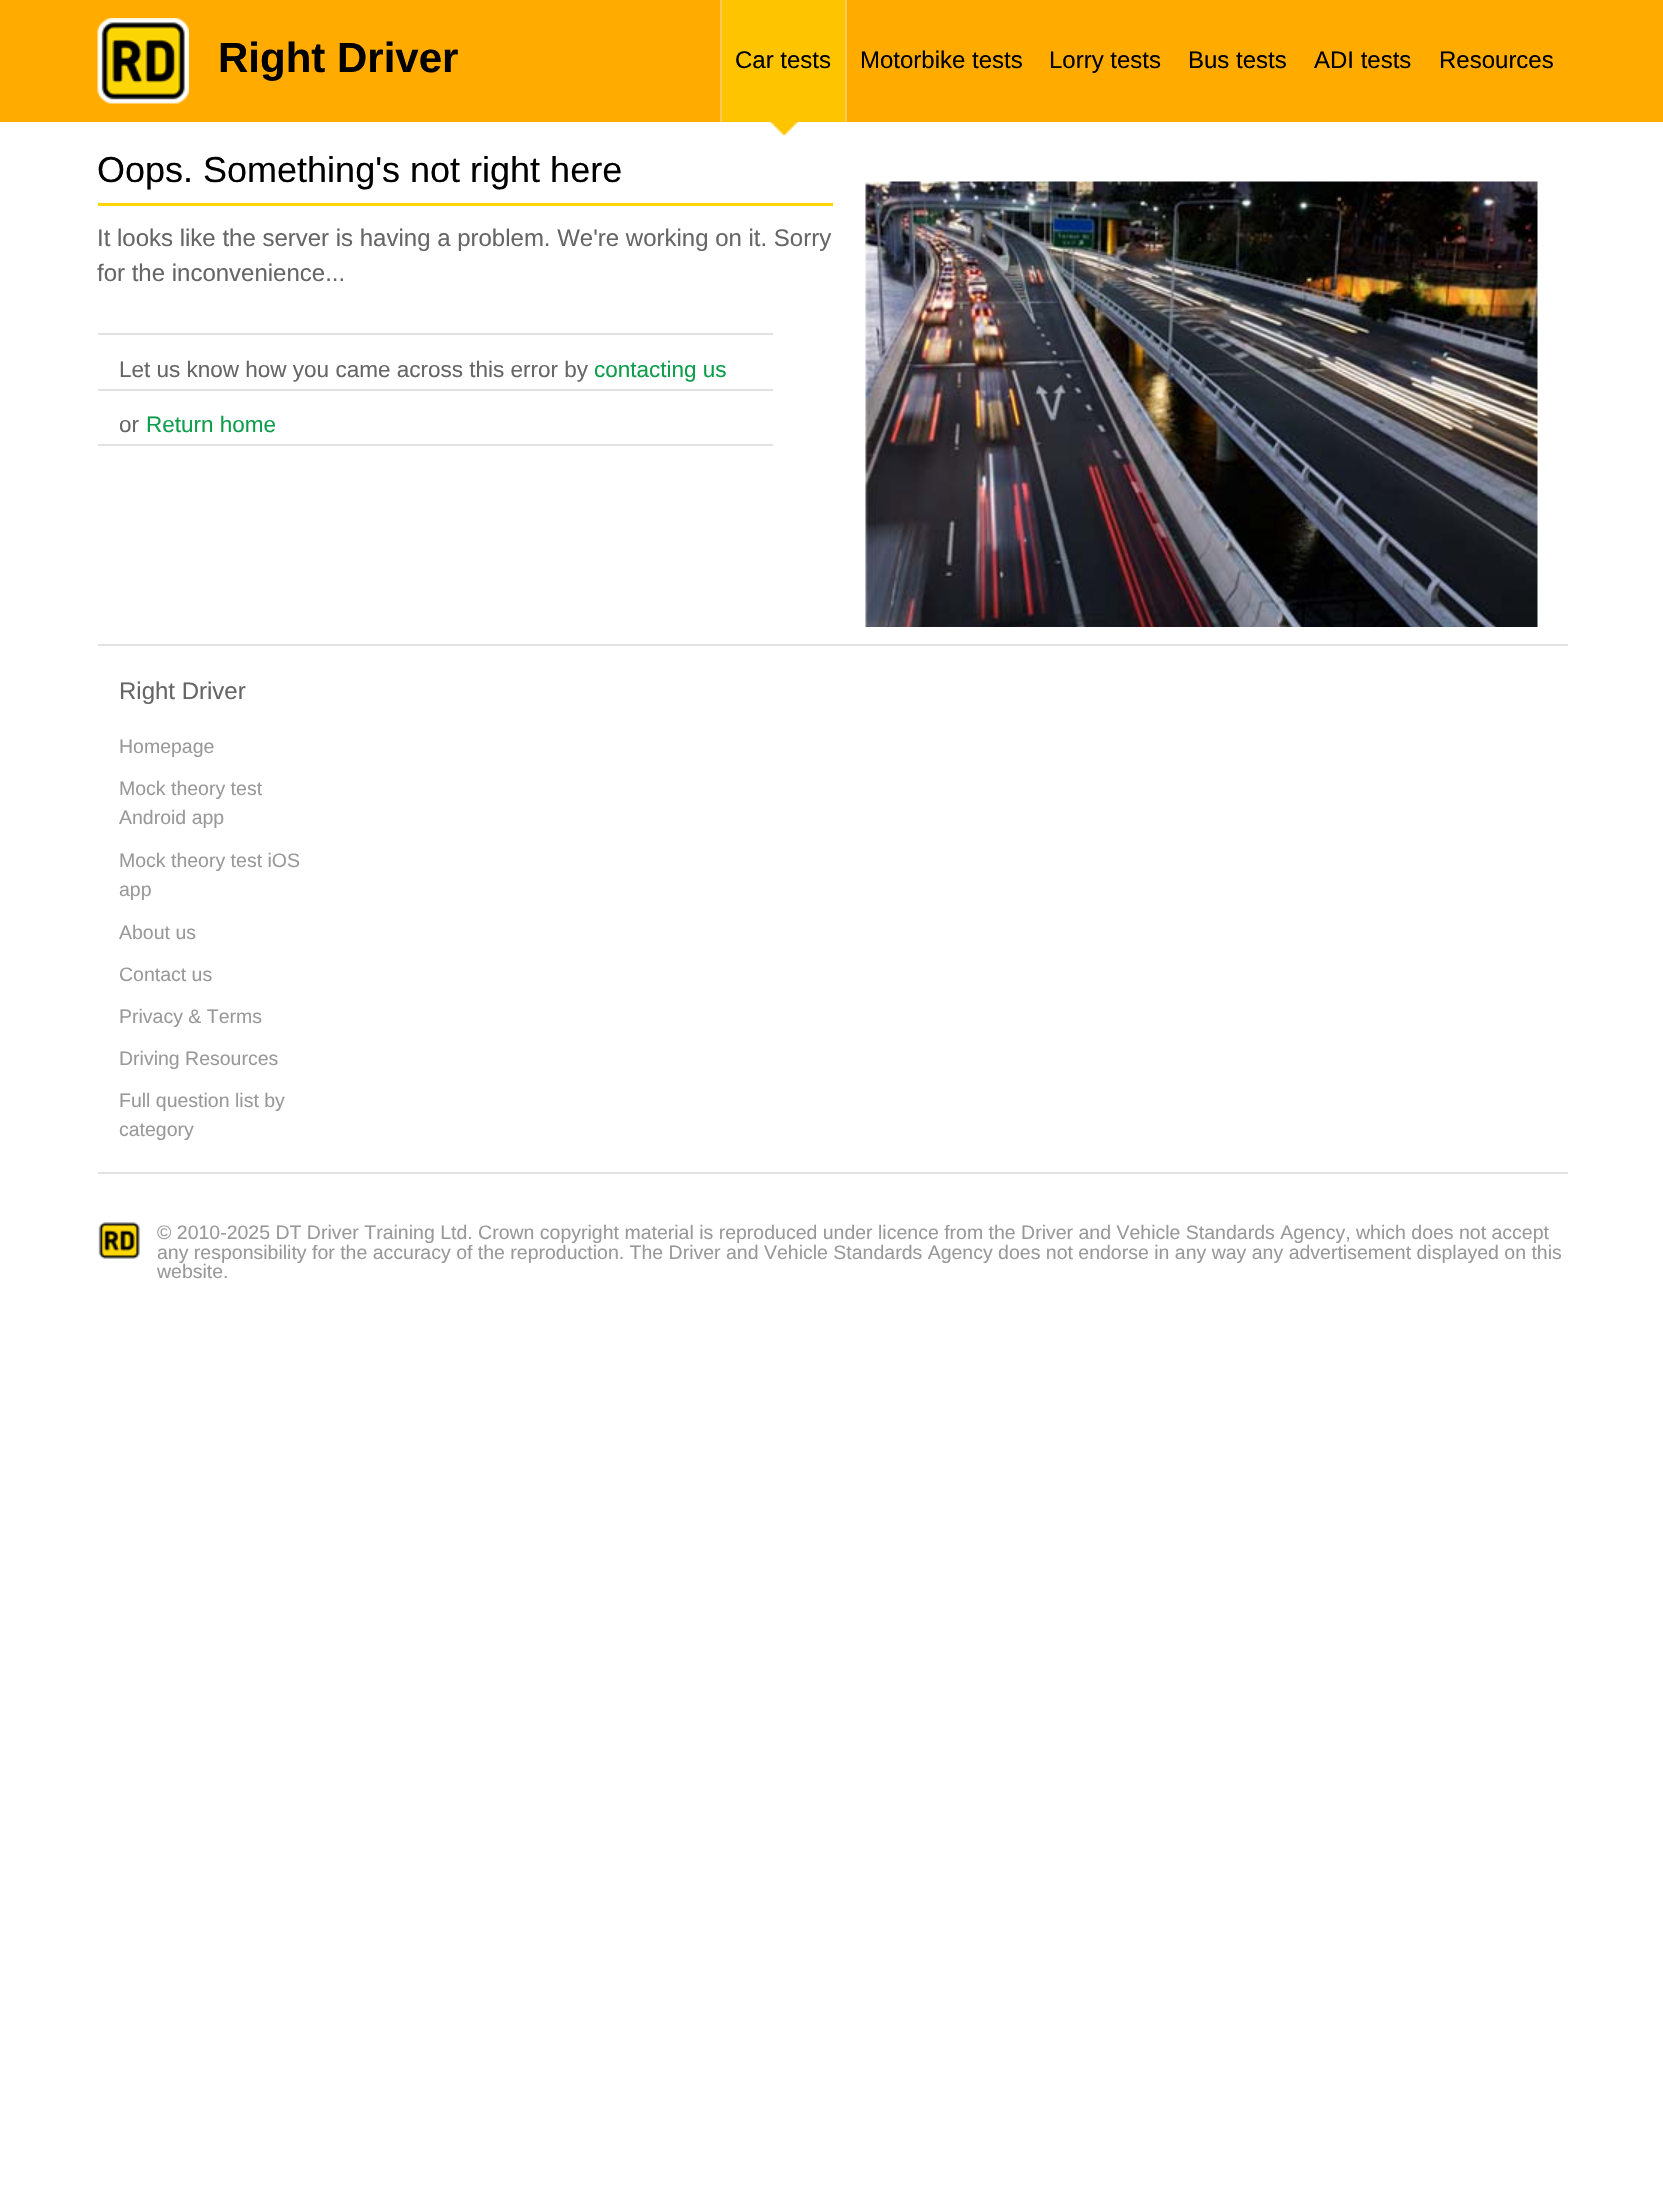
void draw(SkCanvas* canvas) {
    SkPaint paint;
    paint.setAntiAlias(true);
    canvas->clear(0xFFFFFFFF);
    paint.setColor(0xFFFFAB00);
    canvas->drawRect(SkRect::MakeXYWH(0, 0, 1663, 122), paint);
    canvas->drawImageRect(SkImages::DeferredFromEncodedData(SkData::MakeFromFileName("img1.png")), SkRect::MakeXYWH(97, 18, 92, 86), SkSamplingOptions());
    SkFont font1(fontMgr->matchFamilyStyle("Liberation Sans", SkFontStyle::Bold()), 42);
    font1.setSubpixel(true);
    paint.setColor(0xFF000000);
    canvas->drawString("Right Driver", 218, 72, font1, paint);
    canvas->drawImageRect(SkImages::DeferredFromEncodedData(SkData::MakeFromFileName("img2.png")), SkRect::MakeXYWH(769, 122, 29, 15), SkSamplingOptions());
    paint.setColor(0xFFFFC400);
    canvas->drawRect(SkRect::MakeXYWH(722, 0, 123, 122), paint);
    paint.setColor(0xFFFFC857);
    canvas->drawRect(SkRect::MakeXYWH(845, 0, 2, 122), paint);
    canvas->drawRect(SkRect::MakeXYWH(720, 0, 2, 122), paint);
    SkFont font2(fontMgr->matchFamilyStyle("Liberation Sans", SkFontStyle::Normal()), 24);
    font2.setSubpixel(true);
    paint.setColor(0xFF000000);
    canvas->drawString("Car tests", 735, 68, font2, paint);
    canvas->drawString("Motorbike tests", 860, 68, font2, paint);
    canvas->drawString("Lorry tests", 1049, 68, font2, paint);
    canvas->drawString("Bus tests", 1188, 68, font2, paint);
    canvas->drawString("ADI tests", 1314, 68, font2, paint);
    canvas->drawString("Resources", 1439, 68, font2, paint);
    SkFont font3(fontMgr->matchFamilyStyle("Liberation Sans", SkFontStyle::Normal()), 36);
    font3.setSubpixel(true);
    canvas->drawString("Oops. Something's not right here", 97, 182, font3, paint);
    paint.setColor(0xFFFFD500);
    canvas->drawRect(SkRect::MakeXYWH(98, 203, 735, 3), paint);
    canvas->drawImageRect(SkImages::DeferredFromEncodedData(SkData::MakeFromFileName("img3.png")), SkRect::MakeXYWH(865, 181, 673, 446), SkSamplingOptions());
    paint.setColor(0xFF666666);
    canvas->drawString("It looks like the server is having a problem. We're working on it. Sorry", 97, 246, font2, paint);
    canvas->drawString("for the inconvenience...", 97, 281, font2, paint);
    paint.setColor(0xFFE2E2E2);
    canvas->drawRect(SkRect::MakeXYWH(98, 333, 675, 2), paint);
    canvas->drawRect(SkRect::MakeXYWH(98, 389, 675, 2), paint);
    SkFont font4(fontMgr->matchFamilyStyle("Liberation Sans", SkFontStyle::Normal()), 22.5f);
    font4.setSubpixel(true);
    paint.setColor(0xFF666666);
    canvas->drawString("Let us know how you came across this error by", 119, 377, font4, paint);
    paint.setColor(0xFF0E9D4B);
    canvas->drawString("contacting us", 594, 377, font4, paint);
    paint.setColor(0xFFE2E2E2);
    canvas->drawRect(SkRect::MakeXYWH(98, 444, 675, 2), paint);
    paint.setColor(0xFF666666);
    canvas->drawString("or", 119, 432, font4, paint);
    paint.setColor(0xFF0E9D4B);
    canvas->drawString("Return home", 146, 432, font4, paint);
    paint.setColor(0xFFE2E2E2);
    canvas->drawRect(SkRect::MakeXYWH(98, 644, 1470, 2), paint);
    paint.setColor(0xFF666666);
    canvas->drawString("Right Driver", 119, 699, font2, paint);
    SkFont font5(fontMgr->matchFamilyStyle("Liberation Sans", SkFontStyle::Normal()), 19.5f);
    font5.setSubpixel(true);
    paint.setColor(0xFF999999);
    canvas->drawString("Homepage", 119, 753, font5, paint);
    canvas->drawString("Mock theory test", 119, 795, font5, paint);
    canvas->drawString("Android app", 119, 824, font5, paint);
    canvas->drawString("Mock theory test iOS", 119, 867, font5, paint);
    canvas->drawString("app", 119, 896, font5, paint);
    canvas->drawString("About us", 119, 939, font5, paint);
    canvas->drawString("Contact us", 119, 981, font5, paint);
    canvas->drawString("Privacy & Terms", 119, 1023, font5, paint);
    canvas->drawString("Driving Resources", 119, 1065, font5, paint);
    canvas->drawString("Full question list by", 119, 1107, font5, paint);
    canvas->drawString("category", 119, 1136, font5, paint);
    paint.setColor(0xFFE2E2E2);
    canvas->drawRect(SkRect::MakeXYWH(98, 1172, 1470, 2), paint);
    canvas->drawImageRect(SkImages::DeferredFromEncodedData(SkData::MakeFromFileName("img4.png")), SkRect::MakeXYWH(98, 1222, 42, 37), SkSamplingOptions());
    paint.setColor(0xFF999999);
    canvas->drawString("© 2010-2025 DT Driver Training Ltd. Crown copyright material is reproduced under licence from the Driver and Vehicle Standards Agency, which does not accept", 157, 1239, font5, paint);
    canvas->drawString("any responsibility for the accuracy of the reproduction. The Driver and Vehicle Standards Agency does not endorse in any way any advertisement displayed on this", 157, 1259, font5, paint);
    canvas->drawString("website.", 157, 1278, font5, paint);
}
